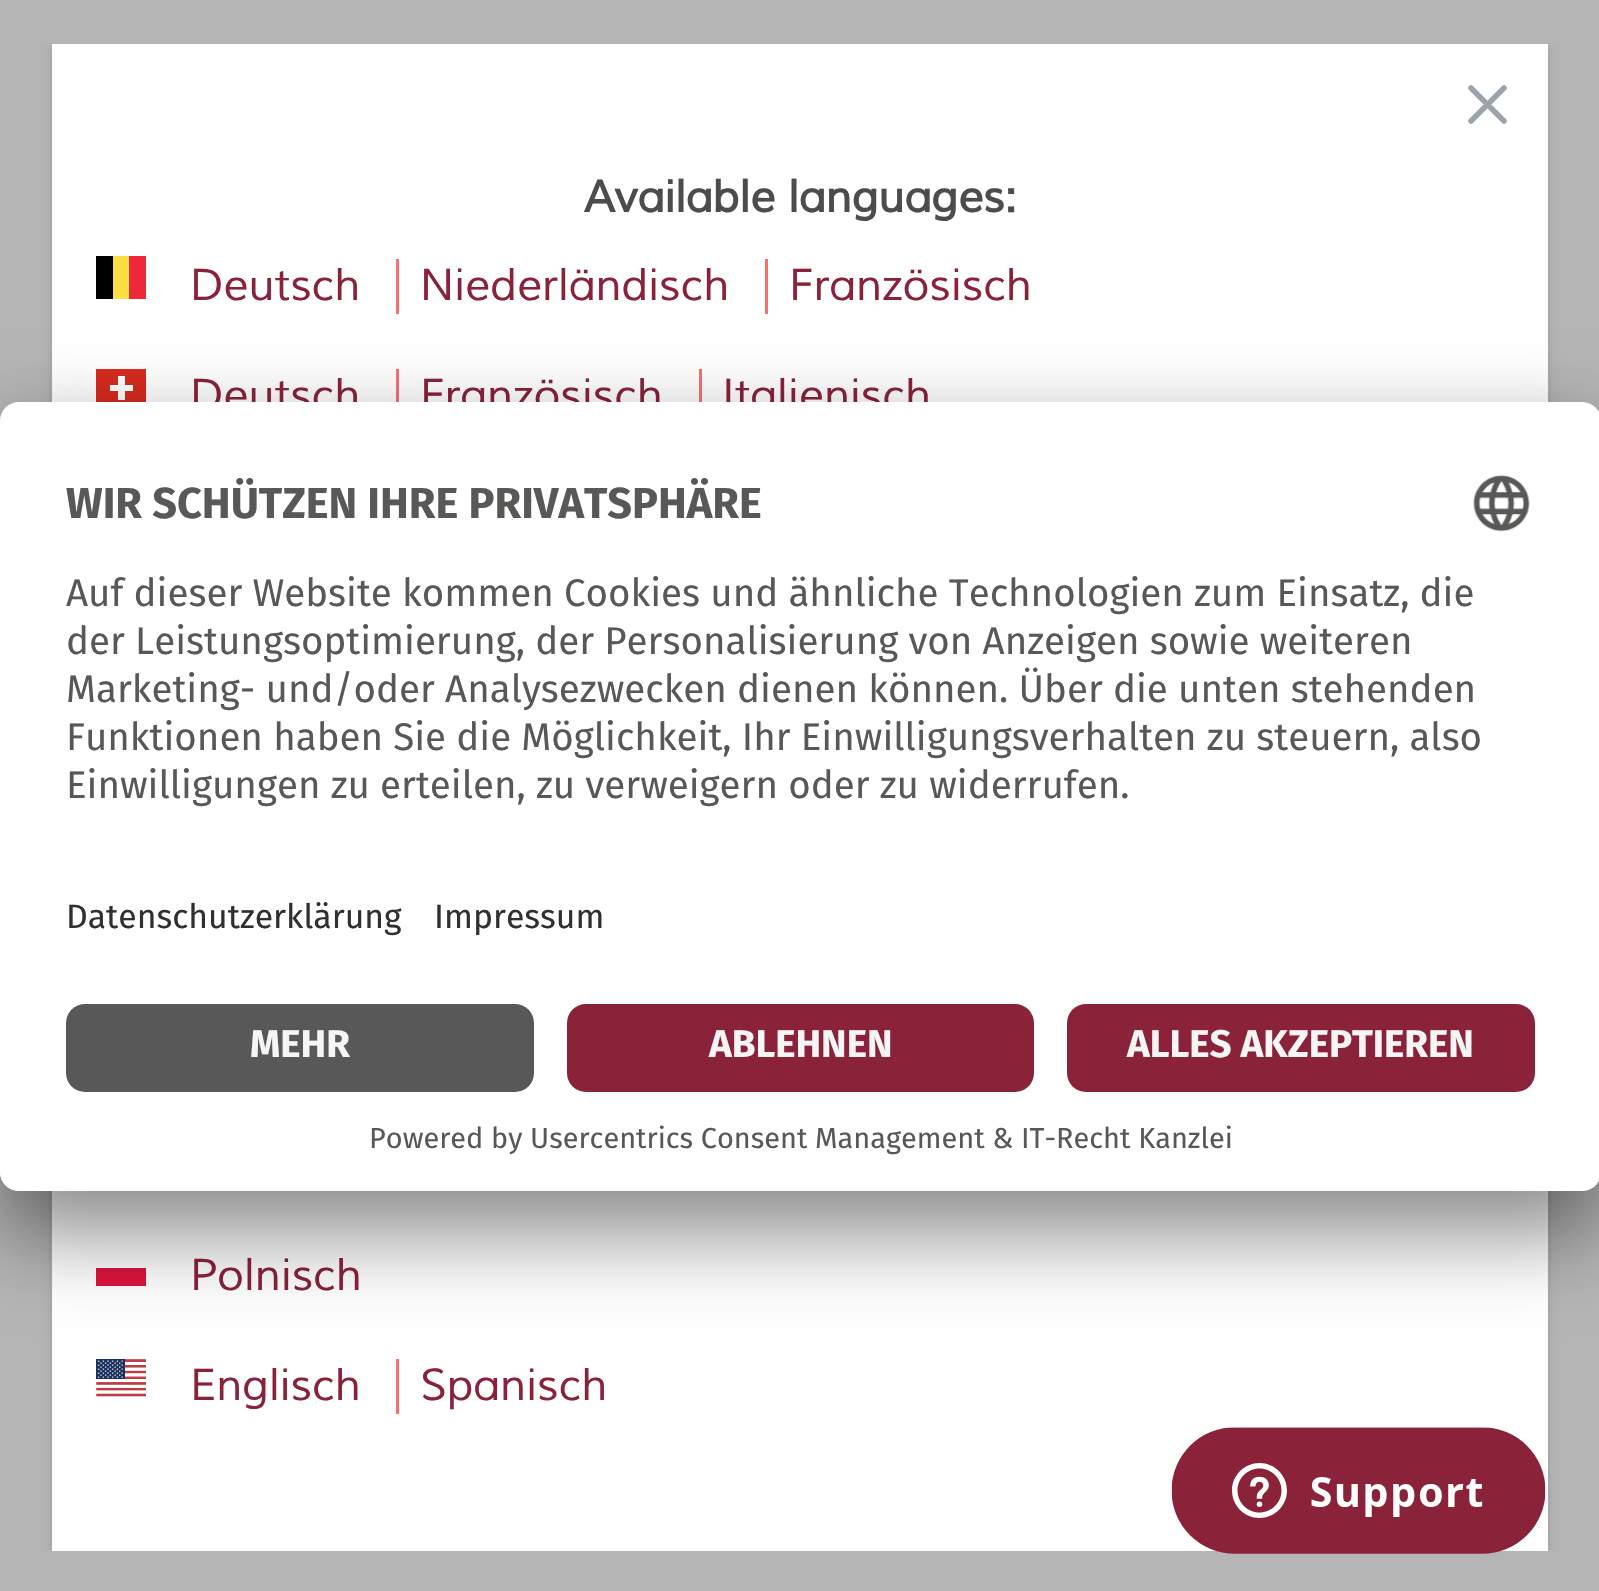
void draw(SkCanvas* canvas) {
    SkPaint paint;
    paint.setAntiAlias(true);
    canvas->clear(0xFFB5B5B5);
    canvas->save();
    canvas->clipRect(SkRect::MakeXYWH(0, 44, 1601, 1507));
    paint.setColor(0x0F000000);
    paint.setMaskFilter(SkMaskFilter::MakeBlur(kNormal_SkBlurStyle, 3));
    canvas->drawRect(SkRect::MakeXYWH(52, 47, 1496, 1507), paint);
    paint.setMaskFilter(nullptr);
    paint.setColor(0x1A000000);
    paint.setMaskFilter(SkMaskFilter::MakeBlur(kNormal_SkBlurStyle, 4));
    canvas->drawRect(SkRect::MakeXYWH(52, 47, 1496, 1507), paint);
    paint.setMaskFilter(nullptr);
    canvas->restore();
    paint.setColor(0xFFFFFFFF);
    canvas->drawRect(SkRect::MakeXYWH(52, 44, 1496, 1507), paint);
    paint.setStyle(SkPaint::kStroke_Style);
    paint.setStrokeWidth(5.5f);
    paint.setStrokeCap(SkPaint::kRound_Cap);
    paint.setStrokeJoin(SkPaint::kRound_Join);
    paint.setColor(0xFF9CA3AF);
    canvas->drawPath(SkPathBuilder().moveTo(1471, 121).lineTo(1504, 88).moveTo(1471, 88).lineTo(1504, 121).detach(), paint);
    SkFont font1(fontMgr->matchFamilyStyle("Muli", SkFontStyle::BoldItalic()), 44);
    font1.setSubpixel(true);
    paint.setStyle(SkPaint::kFill_Style);
    paint.setColor(0xFF4C4C4C);
    canvas->drawString("Available languages:", 584, 212, font1, paint);
    paint.setColor(0xFFED2939);
    canvas->drawRect(SkRect::MakeXYWH(129, 256, 17, 43), paint);
    paint.setColor(0xFFFAE042);
    canvas->drawRect(SkRect::MakeXYWH(113, 256, 16, 43), paint);
    paint.setColor(0xFF000000);
    canvas->drawRect(SkRect::MakeXYWH(96, 256, 17, 43), paint);
    SkFont font2(fontMgr->matchFamilyStyle("Muli", SkFontStyle::Italic()), 44);
    font2.setSubpixel(true);
    paint.setColor(0xFF8A223A);
    canvas->drawString("Deutsch", 190, 300, font2, paint);
    paint.setColor(0xFFF87171);
    canvas->drawRect(SkRect::MakeXYWH(396, 259, 3, 55), paint);
    paint.setColor(0xFF8A223A);
    canvas->drawString("Niederländisch", 420, 300, font2, paint);
    paint.setColor(0xFFF87171);
    canvas->drawRect(SkRect::MakeXYWH(765, 259, 3, 55), paint);
    paint.setColor(0xFF8A223A);
    canvas->drawString("Französisch", 789, 300, font2, paint);
    paint.setColor(0xFFD52B1E);
    canvas->drawRect(SkRect::MakeXYWH(96, 369, 50, 33), paint);
    paint.setColor(0xFFFFFFFF);
    canvas->drawRect(SkRect::MakeXYWH(110, 385, 23, 6), paint);
    canvas->drawRect(SkRect::MakeXYWH(118, 376, 7, 24), paint);
    paint.setColor(0xFF8A223A);
    canvas->drawString("Deutsch", 190, 410, font2, paint);
    paint.setColor(0xFFF87171);
    canvas->drawRect(SkRect::MakeXYWH(396, 369, 3, 33), paint);
    paint.setColor(0xFF8A223A);
    canvas->drawString("Französisch", 420, 410, font2, paint);
    paint.setColor(0xFFF87171);
    canvas->drawRect(SkRect::MakeXYWH(699, 369, 3, 33), paint);
    paint.setColor(0xFF8A223A);
    canvas->drawString("Italienisch", 722, 410, font2, paint);
    paint.setColor(0xFFDC143C);
    canvas->drawRect(SkRect::MakeXYWH(96, 1268, 50, 18), paint);
    paint.setColor(0xFF8A223A);
    canvas->drawString("Polnisch", 190, 1290, font2, paint);
    canvas->drawImageRect(SkImages::DeferredFromEncodedData(SkData::MakeFromFileName("img1.png")), SkRect::MakeXYWH(96, 1359, 50, 38), SkSamplingOptions());
    canvas->drawString("Englisch", 190, 1400, font2, paint);
    paint.setColor(0xFFF87171);
    canvas->drawRect(SkRect::MakeXYWH(396, 1359, 3, 55), paint);
    paint.setColor(0xFF8A223A);
    canvas->drawString("Spanisch", 420, 1400, font2, paint);
    paint.setColor(0x4D000000);
    paint.setMaskFilter(SkMaskFilter::MakeBlur(kNormal_SkBlurStyle, 38.5f));
    canvas->drawRoundRect(SkRect::MakeXYWH(0, 457, 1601, 789), 19, 19, paint);
    paint.setMaskFilter(nullptr);
    paint.setColor(0x38000000);
    paint.setMaskFilter(SkMaskFilter::MakeBlur(kNormal_SkBlurStyle, 36));
    canvas->drawRoundRect(SkRect::MakeXYWH(0, 415, 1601, 790), 19, 19, paint);
    paint.setMaskFilter(nullptr);
    paint.setColor(0xFFFFFFFF);
    canvas->drawRoundRect(SkRect::MakeXYWH(0, 402, 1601, 789), 19, 19, paint);
    canvas->save();
    canvas->clipPath(SkPathBuilder().moveTo(19, 402).lineTo(1582, 402).cubicTo(1592.5f, 402, 1601, 410.5f, 1601, 421).lineTo(1601, 1172).cubicTo(1601, 1182.5f, 1592.5f, 1191, 1582, 1191).lineTo(19, 1191).cubicTo(8.5f, 1191, 0, 1182.5f, 0, 1172).lineTo(0, 421).cubicTo(0, 410.5f, 8.5f, 402, 19, 402).close().detach(), true);
    canvas->clipPath(SkPathBuilder().moveTo(19, 402).lineTo(1582, 402).cubicTo(1592.5f, 402, 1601, 410.5f, 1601, 421).lineTo(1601, 982).lineTo(0, 982).lineTo(0, 421).cubicTo(0, 410.5f, 8.5f, 402, 19, 402).close().detach(), true);
    canvas->drawRect(SkRect::MakeXYWH(0, 404, 1599, 578), paint);
    canvas->restore();
    SkFont font3(fontMgr->matchFamilyStyle("Fira Sans", SkFontStyle::Bold()), 43.25f);
    font3.setSubpixel(true);
    paint.setColor(0xFF595857);
    canvas->drawString("WIR SCHÜTZEN IHRE PRIVATSPHÄRE", 66, 518, font3, paint);
    canvas->drawImageRect(SkImages::DeferredFromEncodedData(SkData::MakeFromFileName("img2.png")), SkRect::MakeXYWH(1473, 475, 57, 57), SkSamplingOptions());
    SkFont font4(fontMgr->matchFamilyStyle("Fira Sans", SkFontStyle::Normal()), 38.5f);
    font4.setSubpixel(true);
    canvas->drawString("Auf dieser Website kommen Cookies und ähnliche Technologien zum Einsatz, die", 66, 606, font4, paint);
    canvas->drawString("der Leistungsoptimierung, der Personalisierung von Anzeigen sowie weiteren", 66, 654, font4, paint);
    canvas->drawString("Marketing- und/oder Analysezwecken dienen können. Über die unten stehenden", 66, 702, font4, paint);
    canvas->drawString("Funktionen haben Sie die Möglichkeit, Ihr Einwilligungsverhalten zu steuern, also", 66, 750, font4, paint);
    canvas->drawString("Einwilligungen zu erteilen, zu verweigern oder zu widerrufen.", 66, 798, font4, paint);
    SkFont font5(fontMgr->matchFamilyStyle("Fira Sans", SkFontStyle::Normal()), 33.75f);
    font5.setSubpixel(true);
    paint.setColor(0xFF303030);
    canvas->drawString("Datenschutzerklärung", 66, 928, font5, paint);
    canvas->drawString("Impressum", 434, 928, font5, paint);
    paint.setColor(0xFFFFFFFF);
    canvas->drawPath(SkPathBuilder().moveTo(0, 982).lineTo(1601, 982).lineTo(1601, 1172).cubicTo(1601, 1182.5f, 1592.5f, 1191, 1582, 1191).lineTo(19, 1191).cubicTo(8.5f, 1191, 0, 1182.5f, 0, 1172).close().detach(), paint);
    paint.setColor(0xFF585858);
    canvas->drawRoundRect(SkRect::MakeXYWH(66, 1004, 468, 88), 19, 19, paint);
    SkFont font6(fontMgr->matchFamilyStyle("Fira Sans", SkFontStyle::Bold()), 38.5f);
    font6.setSubpixel(true);
    paint.setColor(0xFFF5F5F5);
    canvas->drawString("MEHR", 250, 1057, font6, paint);
    paint.setColor(0xFF8A233A);
    canvas->drawRoundRect(SkRect::MakeXYWH(567, 1004, 467, 88), 19, 19, paint);
    paint.setColor(0xFFF5F5F5);
    canvas->drawString("ABLEHNEN", 709, 1057, font6, paint);
    paint.setColor(0xFF8A233A);
    canvas->drawRoundRect(SkRect::MakeXYWH(1067, 1004, 468, 88), 19, 19, paint);
    paint.setColor(0xFFF5F5F5);
    canvas->drawString("ALLES AKZEPTIEREN", 1127, 1057, font6, paint);
    SkFont font7(fontMgr->matchFamilyStyle("Fira Sans", SkFontStyle::Normal()), 28.9f);
    font7.setSubpixel(true);
    paint.setColor(0xFF595857);
    canvas->drawString("Powered by Usercentrics Consent Management & IT-Recht Kanzlei", 369, 1148, font7, paint);
    canvas->drawImageRect(SkImages::DeferredFromEncodedData(SkData::MakeFromFileName("img3.png")), SkRect::MakeXYWH(1171, 1427, 375, 127), SkSamplingOptions());
}
